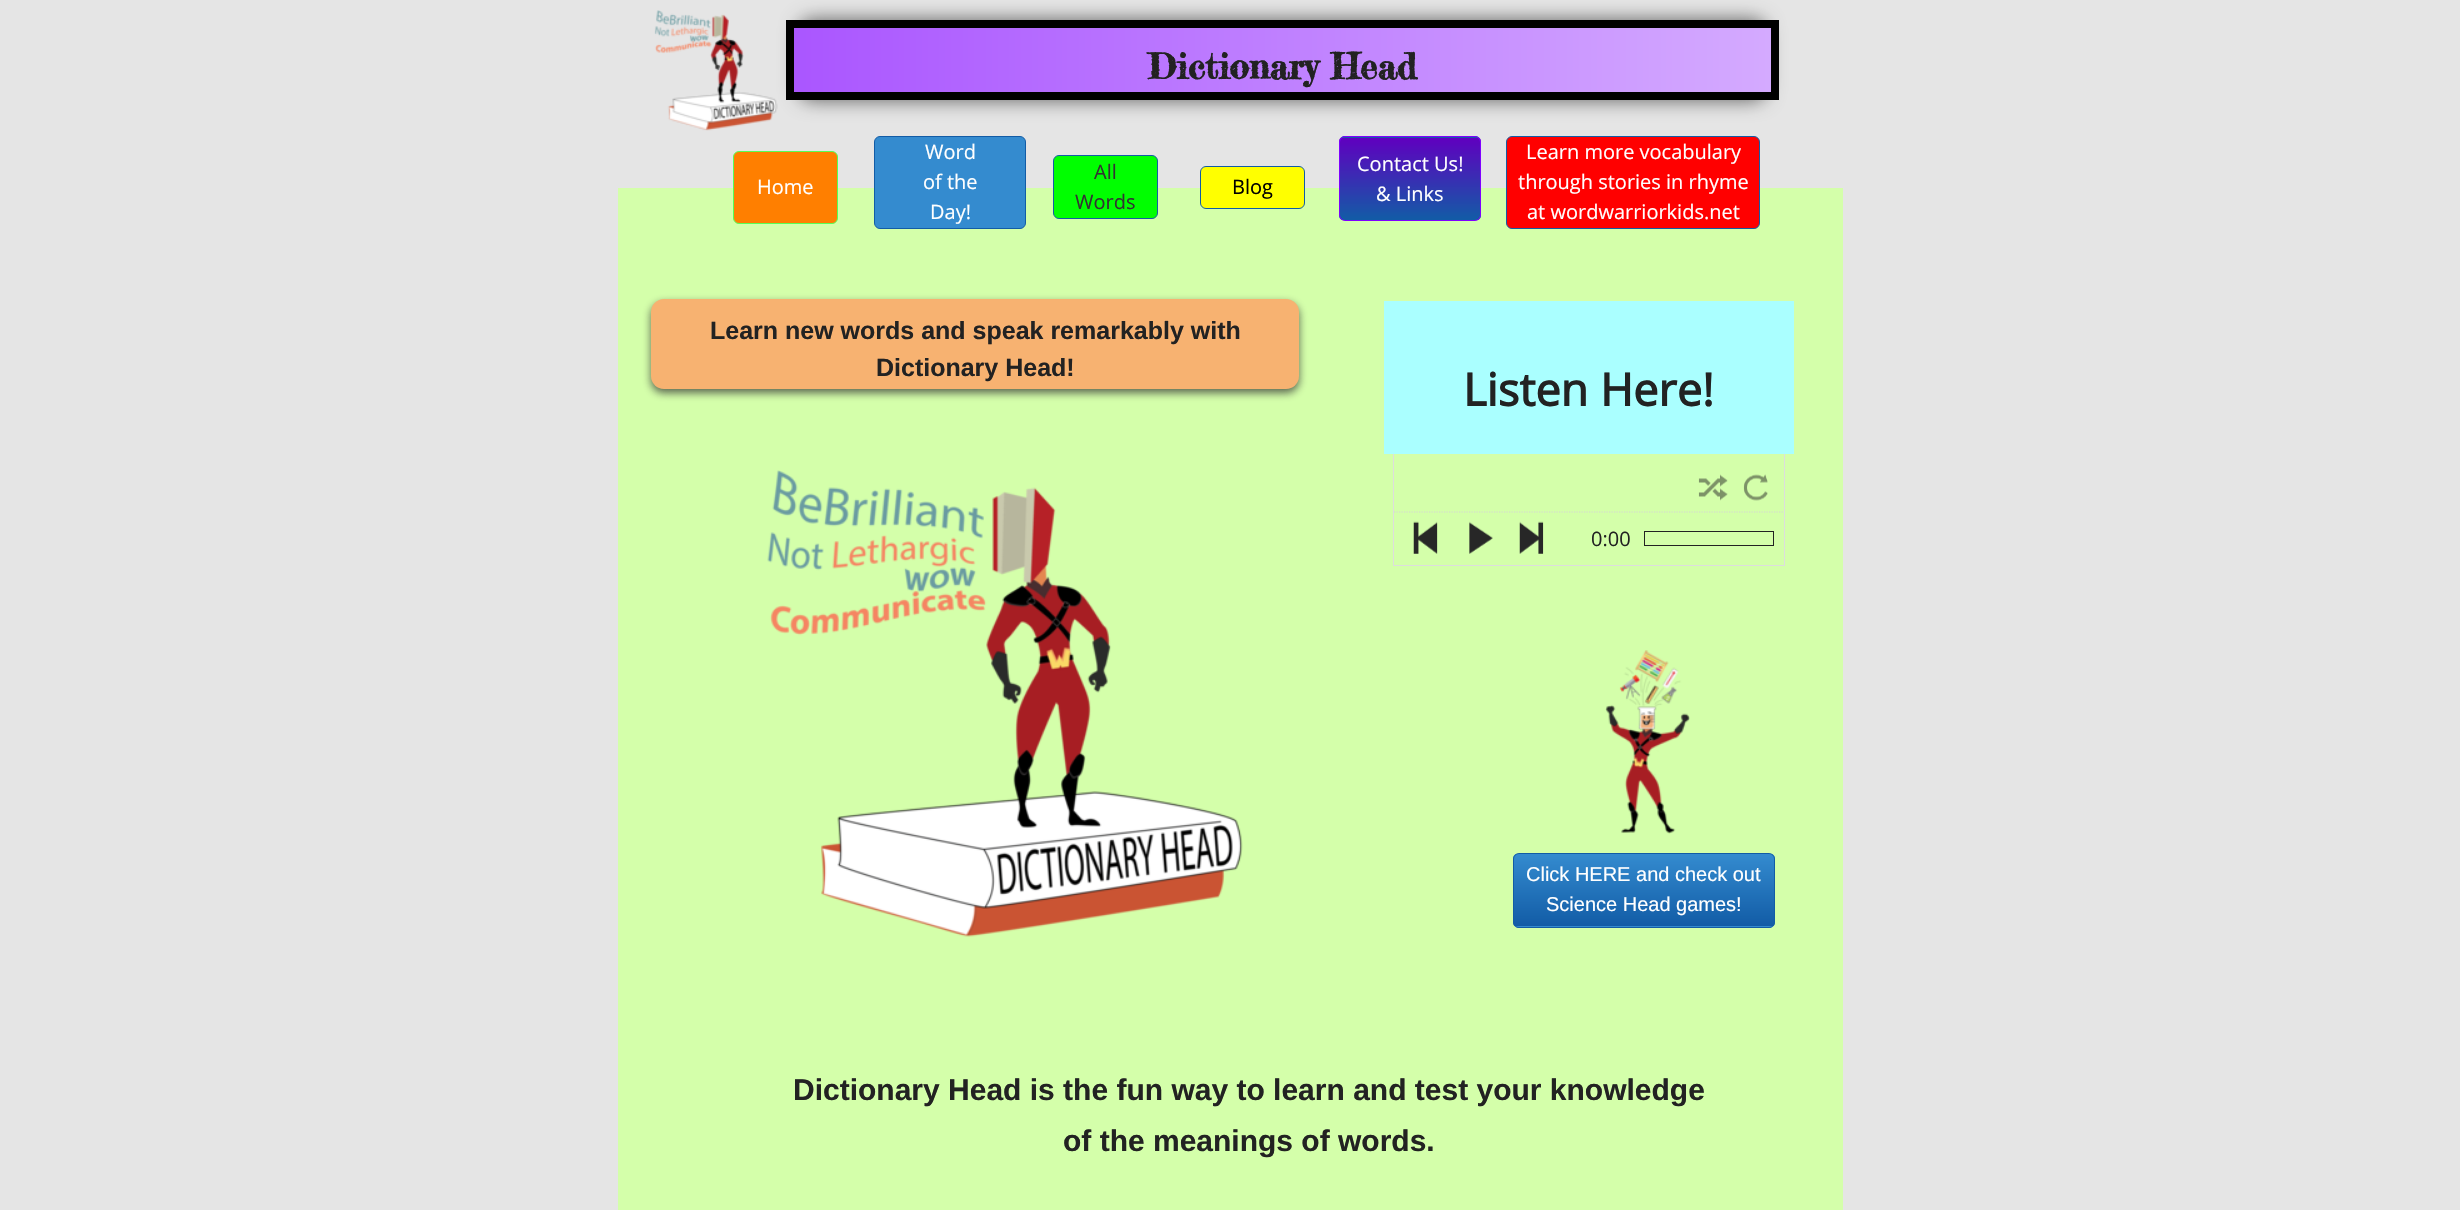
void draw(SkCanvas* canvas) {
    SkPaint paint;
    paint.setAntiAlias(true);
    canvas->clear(0xFFE5E5E5);
    paint.setColor(0xFFD4FFAA);
    canvas->drawRect(SkRect::MakeXYWH(618, 188, 1225, 1022), paint);
    paint.setColor(0x99000000);
    paint.setMaskFilter(SkMaskFilter::MakeBlur(kNormal_SkBlurStyle, 9.5f));
    canvas->drawRoundRect(SkRect::MakeXYWH(799, 20, 967, 80), 13, 13, paint);
    paint.setMaskFilter(nullptr);
    canvas->drawImageRect(SkImages::DeferredFromEncodedData(SkData::MakeFromFileName("img1.png")), SkRect::MakeXYWH(654, 10, 124, 121), SkSamplingOptions());
    {
        const SkColor colors[] = {0xFFAA56FF, 0xFFD4AAFF};
        const float stops[] = {0, 1};
        const SkPoint ends[] = {{794, 60}, {1771, 60}};
        paint.setShader(SkGradientShader::MakeLinear(ends, colors, stops, 2, SkTileMode::kClamp));
        paint.setAlpha(255);
    }
    canvas->drawRect(SkRect::MakeXYWH(794, 28, 977, 64), paint);
    paint.setStyle(SkPaint::kStroke_Style);
    paint.setStrokeWidth(8);
    paint.setShader(nullptr);
    paint.setColor(0xFF000000);
    canvas->drawRect(SkRect::MakeXYWH(790, 24, 985, 72), paint);
    SkFont font1(fontMgr->matchFamilyStyle("Fredericka the Great", SkFontStyle::Bold()), 35);
    font1.setSubpixel(true);
    paint.setStyle(SkPaint::kFill_Style);
    paint.setColor(0xFF222222);
    canvas->drawString("Dictionary Head", 1148, 79, font1, paint);
    paint.setColor(0xFFFF7F00);
    canvas->drawRoundRect(SkRect::MakeXYWH(733.5f, 151.5f, 104, 72), 5.5f, 5.5f, paint);
    paint.setStyle(SkPaint::kStroke_Style);
    paint.setStrokeWidth(1);
    paint.setColor(0xFF56FF56);
    canvas->drawRoundRect(SkRect::MakeXYWH(733.5f, 151.5f, 104, 72), 5.5f, 5.5f, paint);
    SkFont font2(fontMgr->matchFamilyStyle("Open Sans", SkFontStyle::Normal()), 20);
    font2.setSubpixel(true);
    paint.setStyle(SkPaint::kFill_Style);
    paint.setColor(0xFFFFFFFF);
    canvas->drawString("Home", 757, 194, font2, paint);
    paint.setColor(0xFF348BCF);
    canvas->drawRoundRect(SkRect::MakeXYWH(874.5f, 136.5f, 151, 92), 5.5f, 5.5f, paint);
    paint.setStyle(SkPaint::kStroke_Style);
    paint.setColor(0xFF125CA6);
    canvas->drawRoundRect(SkRect::MakeXYWH(874.5f, 136.5f, 151, 92), 5.5f, 5.5f, paint);
    paint.setStyle(SkPaint::kFill_Style);
    paint.setColor(0xFFFFFFFF);
    canvas->drawString("Word", 925, 159, font2, paint);
    canvas->drawString("of the", 923, 189, font2, paint);
    canvas->drawString("Day!", 930, 219, font2, paint);
    paint.setColor(0xFF00FF00);
    canvas->drawRoundRect(SkRect::MakeXYWH(1053.5f, 155.5f, 104, 63), 5.5f, 5.5f, paint);
    paint.setStyle(SkPaint::kStroke_Style);
    paint.setColor(0xFF125CA6);
    canvas->drawRoundRect(SkRect::MakeXYWH(1053.5f, 155.5f, 104, 63), 5.5f, 5.5f, paint);
    paint.setStyle(SkPaint::kFill_Style);
    paint.setColor(0xFF333333);
    canvas->drawString("All", 1094, 179, font2, paint);
    canvas->drawString("Words", 1075, 209, font2, paint);
    paint.setColor(0xFFFFFF00);
    canvas->drawRoundRect(SkRect::MakeXYWH(1200.5f, 166.5f, 104, 42), 5.5f, 5.5f, paint);
    paint.setStyle(SkPaint::kStroke_Style);
    paint.setColor(0xFF125CA6);
    canvas->drawRoundRect(SkRect::MakeXYWH(1200.5f, 166.5f, 104, 42), 5.5f, 5.5f, paint);
    paint.setStyle(SkPaint::kFill_Style);
    paint.setColor(0xFF000000);
    canvas->drawString("Blog", 1232, 194, font2, paint);
    canvas->save();
    canvas->clipPath(SkPathBuilder().moveTo(1345, 136).lineTo(1475, 136).cubicTo(1478.5f, 136, 1481, 138.5f, 1481, 142).lineTo(1481, 215).cubicTo(1481, 218.5f, 1478.5f, 221, 1475, 221).lineTo(1345, 221).cubicTo(1341.5f, 221, 1339, 218.5f, 1339, 215).lineTo(1339, 142).cubicTo(1339, 138.5f, 1341.5f, 136, 1345, 136).close().detach(), true);
    {
        const SkColor colors[] = {0xFF5F00BF, 0xFF125CA6};
        const float stops[] = {0, 1};
        const SkPoint ends[] = {{1410, 55}, {1410, 138}};
        paint.setShader(SkGradientShader::MakeLinear(ends, colors, stops, 2, SkTileMode::kClamp));
        paint.setAlpha(255);
    }
    canvas->drawRect(SkRect::MakeXYWH(1339, 136, 142, 2), paint);
    {
        const SkColor colors[] = {0xFF5F00BF, 0xFF125CA6};
        const float stops[] = {0, 1};
        const SkPoint ends[] = {{1410, 138}, {1410, 220}};
        paint.setShader(SkGradientShader::MakeLinear(ends, colors, stops, 2, SkTileMode::kClamp));
        paint.setAlpha(255);
    }
    canvas->drawRect(SkRect::MakeXYWH(1339, 138, 142, 82), paint);
    canvas->restore();
    paint.setStyle(SkPaint::kStroke_Style);
    paint.setShader(nullptr);
    paint.setColor(0xFF7F00FF);
    canvas->drawRoundRect(SkRect::MakeXYWH(1339.5f, 136.5f, 141, 84), 5.5f, 5.5f, paint);
    paint.setStyle(SkPaint::kFill_Style);
    paint.setColor(0xFFFFFFFF);
    canvas->drawString("Contact Us!", 1357, 171, font2, paint);
    canvas->drawString("& Links", 1376, 201, font2, paint);
    paint.setColor(0xFFFF0000);
    canvas->drawRoundRect(SkRect::MakeXYWH(1506.5f, 136.5f, 253, 92), 5.5f, 5.5f, paint);
    paint.setStyle(SkPaint::kStroke_Style);
    paint.setColor(0xFF125CA6);
    canvas->drawRoundRect(SkRect::MakeXYWH(1506.5f, 136.5f, 253, 92), 5.5f, 5.5f, paint);
    paint.setStyle(SkPaint::kFill_Style);
    paint.setColor(0xFFFFFFFF);
    canvas->drawString("Learn more vocabulary", 1526, 159, font2, paint);
    canvas->drawString("through stories in rhyme", 1518, 189, font2, paint);
    canvas->drawString("at wordwarriorkids.net", 1527, 219, font2, paint);
    paint.setColor(0xBF323232);
    paint.setMaskFilter(SkMaskFilter::MakeBlur(kNormal_SkBlurStyle, 4.5f));
    canvas->drawRoundRect(SkRect::MakeXYWH(651, 303, 648, 90), 13, 13, paint);
    paint.setMaskFilter(nullptr);
    paint.setColor(0xFFF7B271);
    canvas->drawRoundRect(SkRect::MakeXYWH(651, 299, 648, 90), 13, 13, paint);
    SkFont font3(fontMgr->matchFamilyStyle("Liberation Sans", SkFontStyle::Bold()), 25);
    font3.setSubpixel(true);
    paint.setColor(0xFF222222);
    canvas->drawString("Learn new words and speak remarkably with", 710, 339, font3, paint);
    canvas->drawString("Dictionary Head!", 876, 376, font3, paint);
    paint.setStyle(SkPaint::kStroke_Style);
    paint.setColor(0xFFDDDDDD);
    canvas->drawRect(SkRect::MakeXYWH(1393.5f, 370.5f, 391, 195), paint);
    paint.setStyle(SkPaint::kFill_Style);
    paint.setColor(0xFFAAFFFF);
    canvas->drawRect(SkRect::MakeXYWH(1384, 301, 410, 153), paint);
    SkFont font4(fontMgr->matchFamilyStyle("Open Sans", SkFontStyle::Bold()), 45);
    font4.setSubpixel(true);
    paint.setColor(0xFF222222);
    canvas->drawString("Listen Here!", 1463, 406, font4, paint);
    canvas->drawImageRect(SkImages::DeferredFromEncodedData(SkData::MakeFromFileName("img2.png")), SkRect::MakeXYWH(767, 470, 476, 467), SkSamplingOptions());
    canvas->drawImageRect(SkImages::DeferredFromEncodedData(SkData::MakeFromFileName("img3.png")), SkRect::MakeXYWH(1698, 474, 30, 27), SkSamplingOptions());
    canvas->drawImageRect(SkImages::DeferredFromEncodedData(SkData::MakeFromFileName("img4.png")), SkRect::MakeXYWH(1743, 474, 25, 27), SkSamplingOptions());
    paint.setStyle(SkPaint::kStroke_Style);
    paint.setStrokeWidth(1.2f);
    paint.setColor(0xFFD5D5D5);
    paint.setPathEffect(SkDashPathEffect::Make({{1.25f, 1.25f}}, 0));
    canvas->drawPath(SkPathBuilder().moveTo(1394, 512).lineTo(1784, 512).detach(), paint);
    paint.setPathEffect(nullptr);
    canvas->drawImageRect(SkImages::DeferredFromEncodedData(SkData::MakeFromFileName("img5.png")), SkRect::MakeXYWH(1413, 521, 25, 33), SkSamplingOptions());
    canvas->drawImageRect(SkImages::DeferredFromEncodedData(SkData::MakeFromFileName("img6.png")), SkRect::MakeXYWH(1469, 521, 24, 33), SkSamplingOptions());
    canvas->drawImageRect(SkImages::DeferredFromEncodedData(SkData::MakeFromFileName("img7.png")), SkRect::MakeXYWH(1519, 521, 25, 33), SkSamplingOptions());
    paint.setStyle(SkPaint::kFill_Style);
    paint.setColor(0xFF222222);
    canvas->drawString("0:00", 1591, 546, font2, paint);
    paint.setStyle(SkPaint::kStroke_Style);
    paint.setStrokeWidth(1);
    canvas->drawRect(SkRect::MakeXYWH(1644.5f, 531.5f, 129, 14), paint);
    canvas->drawImageRect(SkImages::DeferredFromEncodedData(SkData::MakeFromFileName("img8.png")), SkRect::MakeXYWH(1605, 650, 85, 184), SkSamplingOptions());
    canvas->save();
    canvas->clipPath(SkPathBuilder().moveTo(1519, 853).lineTo(1769, 853).cubicTo(1772.5f, 853, 1775, 855.5f, 1775, 859).lineTo(1775, 922).cubicTo(1775, 925.5f, 1772.5f, 928, 1769, 928).lineTo(1519, 928).cubicTo(1515.5f, 928, 1513, 925.5f, 1513, 922).lineTo(1513, 859).cubicTo(1513, 855.5f, 1515.5f, 853, 1519, 853).close().detach(), true);
    paint.setStyle(SkPaint::kFill_Style);
    {
        const SkColor colors[] = {0xFF348BCF, 0xFF125CA6};
        const float stops[] = {0, 1};
        const SkPoint ends[] = {{1644, 854}, {1644, 926}};
        paint.setShader(SkGradientShader::MakeLinear(ends, colors, stops, 2, SkTileMode::kClamp));
        paint.setAlpha(255);
    }
    canvas->drawRect(SkRect::MakeXYWH(1513, 854, 262, 72), paint);
    {
        const SkColor colors[] = {0xFF348BCF, 0xFF125CA6};
        const float stops[] = {0, 1};
        const SkPoint ends[] = {{1644, 926}, {1644, 999}};
        paint.setShader(SkGradientShader::MakeLinear(ends, colors, stops, 2, SkTileMode::kClamp));
        paint.setAlpha(255);
    }
    canvas->drawRect(SkRect::MakeXYWH(1513, 926, 262, 2), paint);
    canvas->restore();
    paint.setStyle(SkPaint::kStroke_Style);
    paint.setShader(nullptr);
    paint.setColor(0xFF125CA6);
    canvas->drawRoundRect(SkRect::MakeXYWH(1513.5f, 853.5f, 261, 74), 5.5f, 5.5f, paint);
    SkFont font5(fontMgr->matchFamilyStyle("Liberation Sans", SkFontStyle::Normal()), 20);
    font5.setSubpixel(true);
    paint.setStyle(SkPaint::kFill_Style);
    paint.setColor(0xFFFFFFFF);
    canvas->drawString("Click HERE and check out", 1526, 881, font5, paint);
    canvas->drawString("Science Head games!", 1546, 911, font5, paint);
    SkFont font6(fontMgr->matchFamilyStyle("Liberation Sans", SkFontStyle::Bold()), 30);
    font6.setSubpixel(true);
    paint.setColor(0xFF222222);
    canvas->drawString("Dictionary Head is the fun way to learn and test your knowledge", 793, 1100, font6, paint);
    canvas->drawString("of the meanings of words.", 1063, 1151, font6, paint);
}
